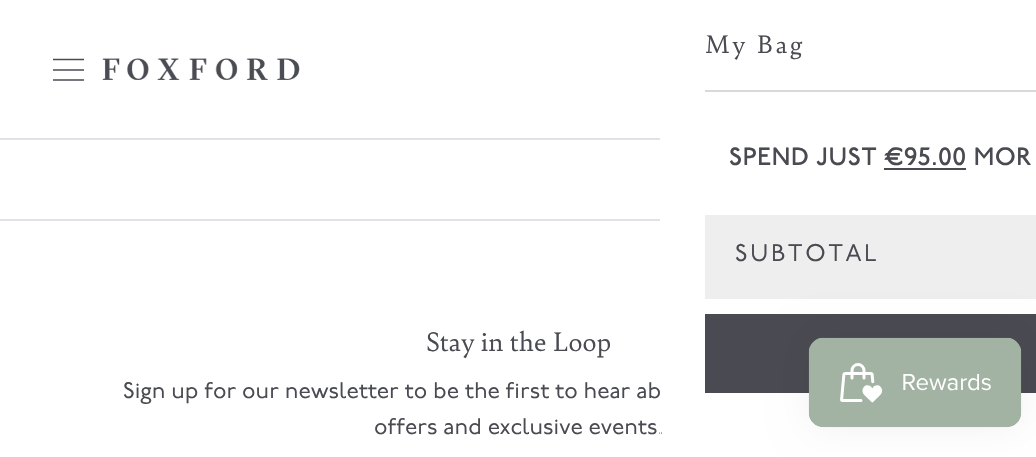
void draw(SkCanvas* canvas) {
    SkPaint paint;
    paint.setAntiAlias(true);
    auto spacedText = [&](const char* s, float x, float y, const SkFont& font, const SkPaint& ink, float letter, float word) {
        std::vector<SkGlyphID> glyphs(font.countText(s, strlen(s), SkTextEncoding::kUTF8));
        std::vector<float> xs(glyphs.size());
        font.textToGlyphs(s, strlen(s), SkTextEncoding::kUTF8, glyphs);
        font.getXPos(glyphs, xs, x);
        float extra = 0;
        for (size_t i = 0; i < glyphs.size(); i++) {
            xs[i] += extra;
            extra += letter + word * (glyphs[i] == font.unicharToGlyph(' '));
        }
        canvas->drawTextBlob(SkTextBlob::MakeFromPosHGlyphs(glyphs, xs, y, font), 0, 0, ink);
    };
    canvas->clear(0xFFFFFFFF);
    paint.setColor(0xFFDFE3E8);
    canvas->drawRect(SkRect::MakeXYWH(0, 138, 660, 2), paint);
    canvas->save();
    canvas->clipRect(SkRect::MakeXYWH(53, 54, 31, 32));
    paint.setStyle(SkPaint::kStroke_Style);
    paint.setStrokeWidth(1.4f);
    paint.setColor(0xFF4A4B52);
    canvas->drawPath(SkPathBuilder().moveTo(52.5f, 59.5f).lineTo(84, 59.5f).moveTo(52.5f, 70).lineTo(84, 70).moveTo(52.5f, 80).lineTo(84, 80).detach(), paint);
    canvas->restore();
    canvas->drawImageRect(SkImages::DeferredFromEncodedData(SkData::MakeFromFileName("img1.png")), SkRect::MakeXYWH(102, 58, 198, 22), SkSamplingOptions());
    SkFont font1(fontMgr->matchFamilyStyle("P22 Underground", SkFontStyle::Normal()), 22.5f);
    font1.setSubpixel(true);
    paint.setStyle(SkPaint::kFill_Style);
    canvas->drawString("offers and exclusive events.", 374, 434, font1, paint);
    paint.setColor(0xFFFFFFFF);
    canvas->drawRect(SkRect::MakeXYWH(660, 432, 1, 2), paint);
    paint.setColor(0xFFD9D9D9);
    canvas->drawRect(SkRect::MakeXYWH(705, 90, 331, 2), paint);
    SkFont font2(fontMgr->matchFamilyStyle("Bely", SkFontStyle::Normal()), 27);
    font2.setSubpixel(true);
    paint.setColor(0xFF4A4B52);
    spacedText("My Bag", 705, 53, font2, paint, 2.75f, 0);
    SkFont font3(fontMgr->matchFamilyStyle("P22 Underground", SkFontStyle::Bold()), 24);
    font3.setSubpixel(true);
    spacedText("SPEND JUST €95.00 MOR", 729, 165, font3, paint, 0.9f, 0);
    canvas->drawRect(SkRect::MakeXYWH(884, 168, 82, 2), paint);
    paint.setColor(0xFFEEEEEE);
    canvas->drawRect(SkRect::MakeXYWH(705, 215, 331, 84), paint);
    SkFont font4(fontMgr->matchFamilyStyle("P22 Underground", SkFontStyle::Normal()), 24);
    font4.setSubpixel(true);
    paint.setColor(0xFF4A4B52);
    spacedText("SUBTOTAL", 735, 261, font4, paint, 2.5f, 0);
    canvas->drawRect(SkRect::MakeXYWH(705, 314, 331, 79), paint);
    paint.setColor(0xFFDFE3E8);
    canvas->drawRect(SkRect::MakeXYWH(0, 219, 660, 2), paint);
    SkFont font5(fontMgr->matchFamilyStyle("Bely", SkFontStyle::Normal()), 28.5f);
    font5.setSubpixel(true);
    paint.setColor(0xFF4A4B52);
    canvas->drawString("Stay in the Loop", 426, 351, font5, paint);
    canvas->drawString("Sign up for our newsletter to be the first to hear ab", 123, 398, font1, paint);
    paint.setColor(0x0D000000);
    paint.setMaskFilter(SkMaskFilter::MakeBlur(kNormal_SkBlurStyle, 19));
    canvas->drawRoundRect(SkRect::MakeXYWH(809, 338, 213, 90), 15, 15, paint);
    paint.setMaskFilter(nullptr);
    canvas->drawImageRect(SkImages::DeferredFromEncodedData(SkData::MakeFromFileName("img2.png")), SkRect::MakeXYWH(808, 337, 214, 91), SkSamplingOptions());
}
